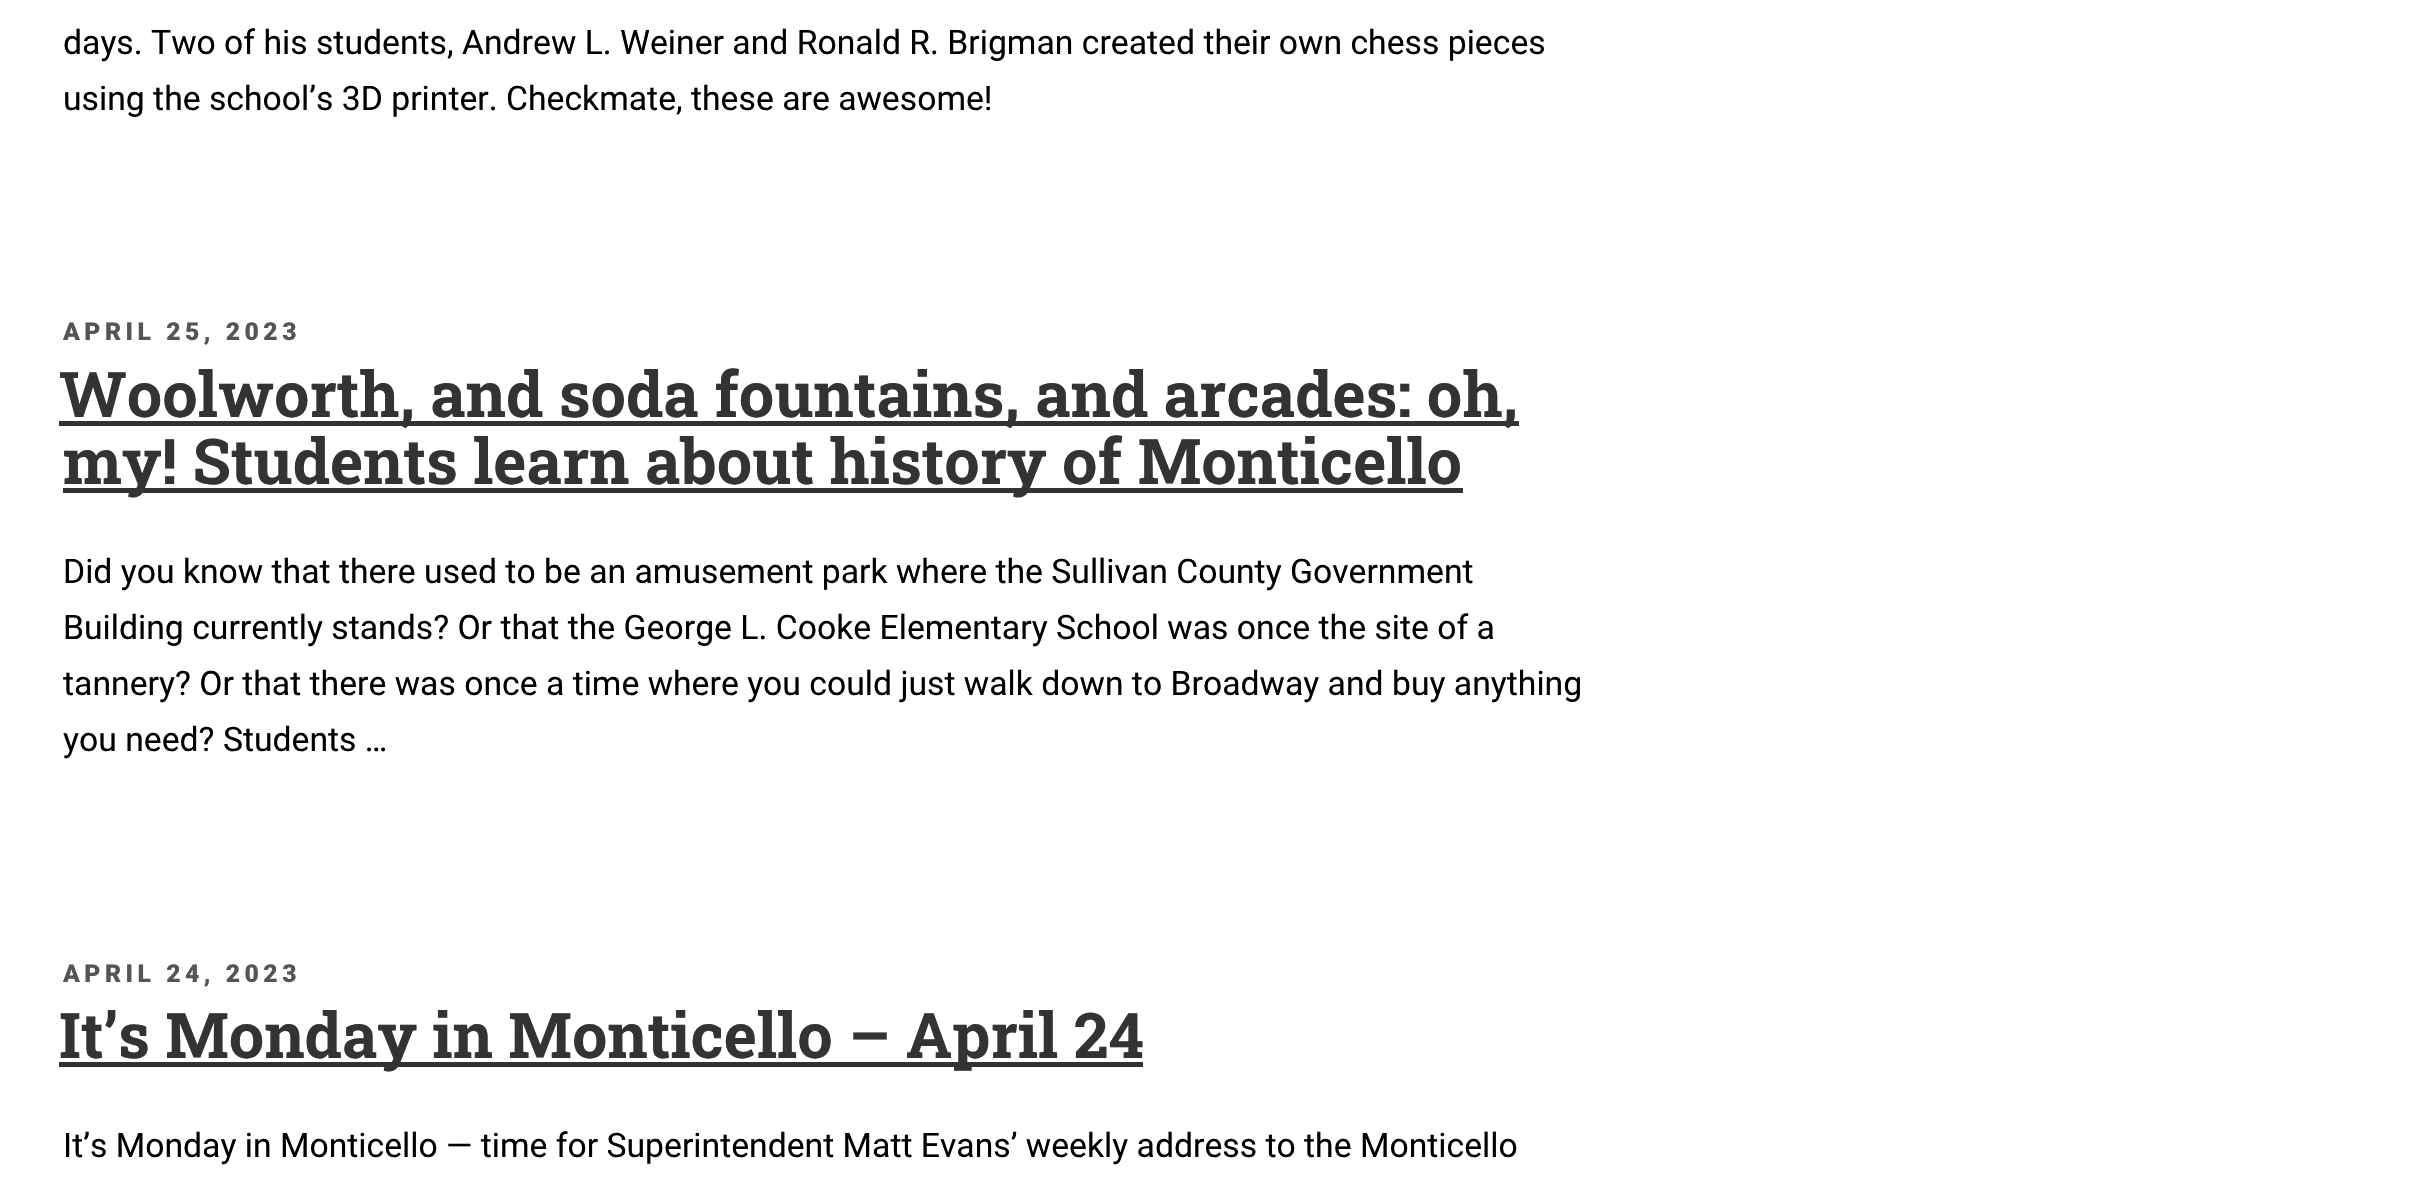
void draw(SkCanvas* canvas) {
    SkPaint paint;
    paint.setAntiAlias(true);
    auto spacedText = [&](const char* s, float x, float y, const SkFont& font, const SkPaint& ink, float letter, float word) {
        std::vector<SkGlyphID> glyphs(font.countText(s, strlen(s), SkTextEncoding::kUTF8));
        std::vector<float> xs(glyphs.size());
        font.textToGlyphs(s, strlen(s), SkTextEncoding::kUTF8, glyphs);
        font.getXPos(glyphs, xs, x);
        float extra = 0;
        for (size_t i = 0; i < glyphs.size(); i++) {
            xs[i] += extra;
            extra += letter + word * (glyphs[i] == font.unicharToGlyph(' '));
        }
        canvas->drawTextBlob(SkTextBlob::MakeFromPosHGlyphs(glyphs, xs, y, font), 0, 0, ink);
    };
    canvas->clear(0xFFFFFFFF);
    SkFont font1(fontMgr->matchFamilyStyle("Roboto", SkFontStyle::Normal()), 33.75f);
    font1.setSubpixel(true);
    paint.setColor(0xFF000000);
    canvas->drawString("days. Two of his students, Andrew L. Weiner and Ronald R. Brigman created their own chess pieces", 63, 54, font1, paint);
    canvas->drawString("using the school’s 3D printer. Checkmate, these are awesome!", 63, 110, font1, paint);
    SkFont font2(fontMgr->matchFamilyStyle("Roboto", SkFontStyle(900, SkFontStyle::kNormal_Width, SkFontStyle::kUpright_Slant)), 24.75f);
    font2.setSubpixel(true);
    paint.setColor(0xFF555555);
    spacedText("APRIL 25, 2023", 63, 340, font2, paint, 4.5f, 0);
    paint.setColor(0xFF333333);
    canvas->drawRect(SkRect::MakeXYWH(59, 421, 1460, 5), paint);
    SkFont font3(fontMgr->matchFamilyStyle("Roboto Slab", SkFontStyle::Bold()), 63);
    font3.setSubpixel(true);
    canvas->drawString("Woolworth, and soda fountains, and arcades: oh,", 59, 417, font3, paint);
    canvas->drawRect(SkRect::MakeXYWH(63, 488, 1400, 5), paint);
    canvas->drawString("my! Students learn about history of Monticello", 63, 484, font3, paint);
    paint.setColor(0xFF000000);
    canvas->drawString("Did you know that there used to be an amusement park where the Sullivan County Government", 63, 583, font1, paint);
    canvas->drawString("Building currently stands? Or that the George L. Cooke Elementary School was once the site of a", 63, 639, font1, paint);
    canvas->drawString("tannery? Or that there was once a time where you could just walk down to Broadway and buy anything", 63, 695, font1, paint);
    canvas->drawString("you need? Students …", 63, 751, font1, paint);
    paint.setColor(0xFF555555);
    spacedText("APRIL 24, 2023", 63, 982, font2, paint, 4.5f, 0);
    paint.setColor(0xFF333333);
    canvas->drawRect(SkRect::MakeXYWH(59, 1062, 1084, 5), paint);
    canvas->drawString("It’s Monday in Monticello – April 24", 59, 1058, font3, paint);
    paint.setColor(0xFF000000);
    canvas->drawString("It’s Monday in Monticello — time for Superintendent Matt Evans’ weekly address to the Monticello", 63, 1157, font1, paint);
}
